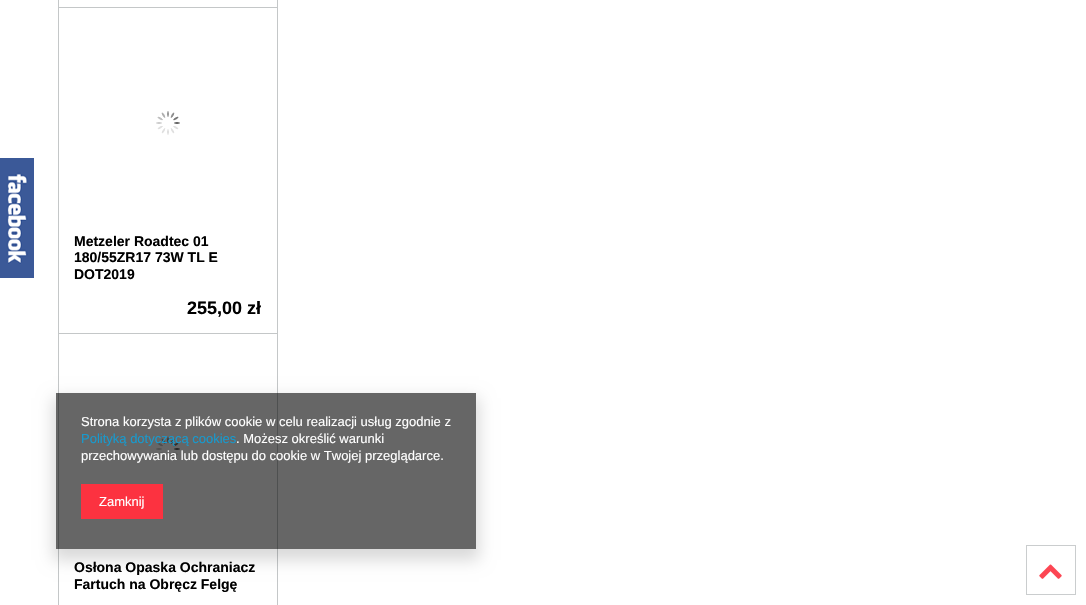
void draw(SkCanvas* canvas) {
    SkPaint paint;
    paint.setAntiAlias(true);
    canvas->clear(0xFFFFFFFF);
    paint.setColor(0xFF666666);
    canvas->drawRect(SkRect::MakeXYWH(56, 393, 420, 156), paint);
    canvas->drawImageRect(SkImages::DeferredFromEncodedData(SkData::MakeFromFileName("img1.png")), SkRect::MakeXYWH(0, 158, 34, 120), SkSamplingOptions());
    paint.setColor(0xFFC4C7C8);
    canvas->drawRect(SkRect::MakeXYWH(58, 0, 1, 605), paint);
    paint.setColor(0xFF4E5050);
    canvas->drawRect(SkRect::MakeXYWH(58, 393, 1, 156), paint);
    paint.setColor(0xFFC4C7C8);
    canvas->drawRect(SkRect::MakeXYWH(277, 0, 1, 605), paint);
    canvas->drawRect(SkRect::MakeXYWH(59, 7, 219, 1), paint);
    canvas->drawRect(SkRect::MakeXYWH(59, 333, 219, 1), paint);
    canvas->drawImageRect(SkImages::DeferredFromEncodedData(SkData::MakeFromFileName("img2.png")), SkRect::MakeXYWH(156, 111, 24, 24), SkSamplingOptions());
    SkFont font1(fontMgr->matchFamilyStyle("Liberation Sans", SkFontStyle::Bold()), 14);
    font1.setSubpixel(true);
    paint.setColor(0xFF000000);
    canvas->drawString("Metzeler Roadtec 01", 74, 246, font1, paint);
    canvas->drawString("180/55ZR17 73W TL E", 74, 262, font1, paint);
    canvas->drawString("DOT2019", 74, 279, font1, paint);
    SkFont font2(fontMgr->matchFamilyStyle("Liberation Sans", SkFontStyle::Bold()), 18);
    font2.setSubpixel(true);
    canvas->drawString("255,00 zł", 187, 314, font2, paint);
    paint.setColor(0xFF4E5050);
    canvas->drawRect(SkRect::MakeXYWH(277, 393, 1, 156), paint);
    canvas->drawImageRect(SkImages::DeferredFromEncodedData(SkData::MakeFromFileName("img3.png")), SkRect::MakeXYWH(156, 437, 24, 24), SkSamplingOptions());
    paint.setColor(0xFF000000);
    canvas->drawString("Osłona Opaska Ochraniacz", 74, 572, font1, paint);
    canvas->drawString("Fartuch na Obręcz Felgę", 74, 589, font1, paint);
    canvas->save();
    canvas->clipPath(SkPathBuilder(SkPathFillType::kEvenOdd).moveTo(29, 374).lineTo(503, 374).lineTo(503, 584).lineTo(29, 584).close().moveTo(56, 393).lineTo(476, 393).lineTo(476, 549).lineTo(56, 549).close().detach(), true);
    paint.setColor(0x26000000);
    paint.setMaskFilter(SkMaskFilter::MakeBlur(kNormal_SkBlurStyle, 7.5f));
    canvas->drawRect(SkRect::MakeXYWH(53, 398, 426, 162), paint);
    paint.setMaskFilter(nullptr);
    canvas->restore();
    SkFont font3(fontMgr->matchFamilyStyle("Liberation Sans", SkFontStyle::Normal()), 13);
    font3.setSubpixel(true);
    paint.setColor(0xFFFFFFFF);
    canvas->drawString("Strona korzysta z plików cookie w celu realizacji usług zgodnie z", 81, 426, font3, paint);
    paint.setColor(0xFF179ACE);
    canvas->drawString("Polityką dotyczącą cookies", 81, 443, font3, paint);
    paint.setColor(0xFFFFFFFF);
    canvas->drawString(". Możesz określić warunki", 236, 443, font3, paint);
    canvas->drawString("przechowywania lub dostępu do cookie w Twojej przeglądarce.", 81, 460, font3, paint);
    paint.setColor(0xFFFC3240);
    canvas->drawRect(SkRect::MakeXYWH(81, 484, 82, 35), paint);
    paint.setColor(0xFFFFFFFF);
    canvas->drawString("Zamknij", 99, 506, font3, paint);
    paint.setStyle(SkPaint::kStroke_Style);
    paint.setStrokeWidth(1);
    paint.setColor(0xFFCACDCE);
    canvas->drawRect(SkRect::MakeXYWH(1026.5f, 545.5f, 49, 49), paint);
    canvas->drawImageRect(SkImages::DeferredFromEncodedData(SkData::MakeFromFileName("img4.png")), SkRect::MakeXYWH(1039, 564, 23, 15), SkSamplingOptions());
}
